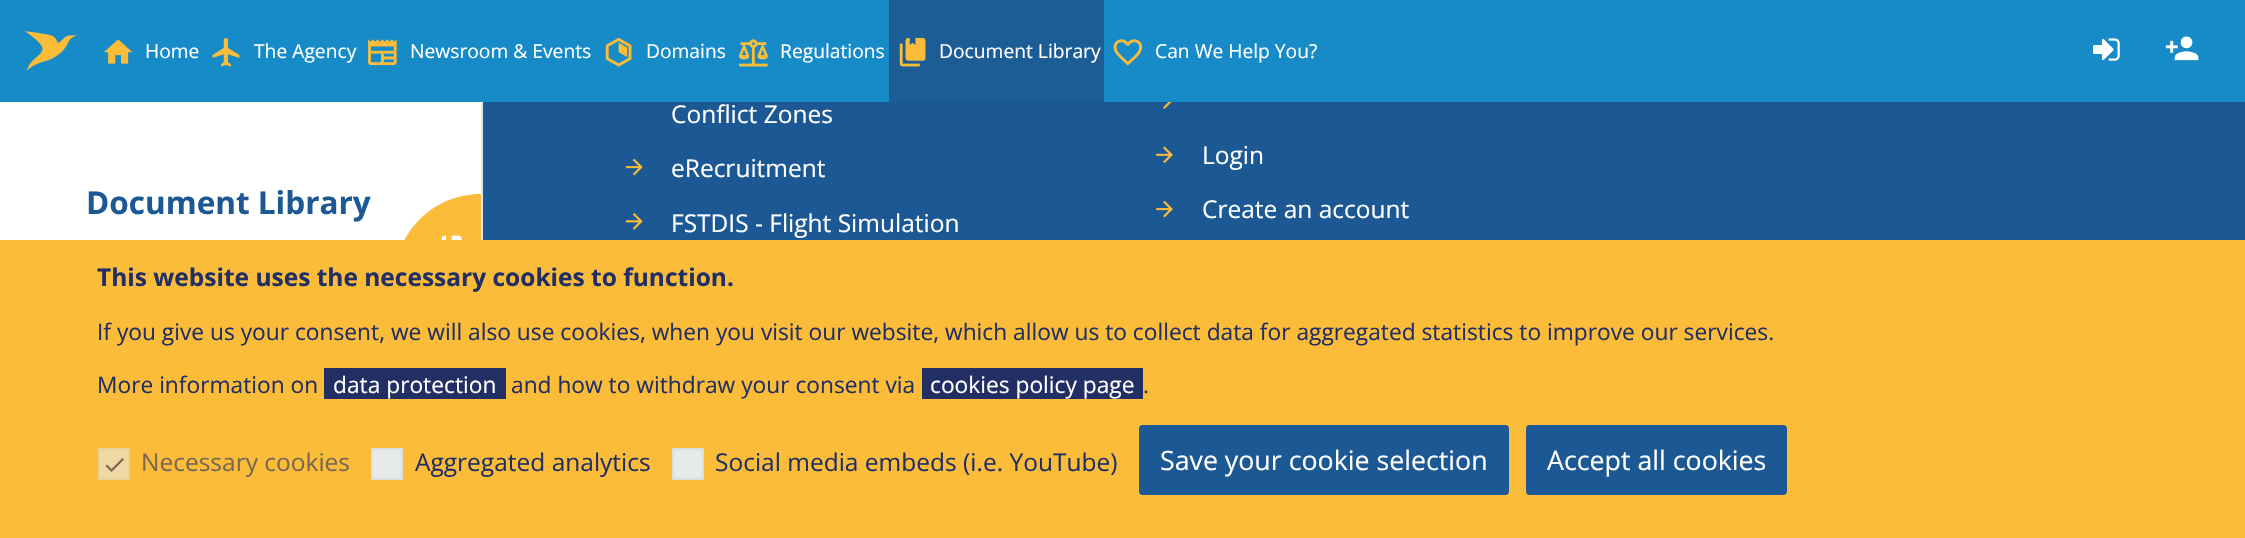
void draw(SkCanvas* canvas) {
    SkPaint paint;
    paint.setAntiAlias(true);
    canvas->clear(0xFF1C5893);
    paint.setColor(0xFFE7E7E7);
    canvas->drawRect(SkRect::MakeXYWH(481, 100, 2, 140), paint);
    paint.setColor(0xFF178BC7);
    canvas->drawRect(SkRect::MakeXYWH(0, 0, 2245, 102), paint);
    canvas->drawImageRect(SkImages::DeferredFromEncodedData(SkData::MakeFromFileName("img1.png")), SkRect::MakeXYWH(25, 31, 52, 40), SkSamplingOptions());
    canvas->drawImageRect(SkImages::DeferredFromEncodedData(SkData::MakeFromFileName("img2.png")), SkRect::MakeXYWH(2093, 38, 27, 23), SkSamplingOptions());
    canvas->drawImageRect(SkImages::DeferredFromEncodedData(SkData::MakeFromFileName("img3.png")), SkRect::MakeXYWH(2165, 36, 34, 25), SkSamplingOptions());
    canvas->drawImageRect(SkImages::DeferredFromEncodedData(SkData::MakeFromFileName("img4.png")), SkRect::MakeXYWH(104, 39, 29, 25), SkSamplingOptions());
    SkFont font1(fontMgr->matchFamilyStyle("Open Sans", SkFontStyle::Normal()), 19.25f);
    font1.setSubpixel(true);
    paint.setColor(0xFFFFFFFF);
    canvas->drawString("Home", 145, 58, font1, paint);
    canvas->drawImageRect(SkImages::DeferredFromEncodedData(SkData::MakeFromFileName("img5.png")), SkRect::MakeXYWH(212, 37, 28, 30), SkSamplingOptions());
    canvas->drawString("The Agency", 254, 58, font1, paint);
    canvas->drawImageRect(SkImages::DeferredFromEncodedData(SkData::MakeFromFileName("img6.png")), SkRect::MakeXYWH(368, 39, 29, 27), SkSamplingOptions());
    canvas->drawString("Newsroom & Events", 410, 58, font1, paint);
    canvas->drawImageRect(SkImages::DeferredFromEncodedData(SkData::MakeFromFileName("img7.png")), SkRect::MakeXYWH(605, 37, 27, 30), SkSamplingOptions());
    canvas->drawString("Domains", 646, 58, font1, paint);
    canvas->drawImageRect(SkImages::DeferredFromEncodedData(SkData::MakeFromFileName("img8.png")), SkRect::MakeXYWH(739, 39, 29, 28), SkSamplingOptions());
    canvas->drawString("Regulations", 780, 58, font1, paint);
    paint.setColor(0xFF1D5D96);
    canvas->drawRect(SkRect::MakeXYWH(889, 0, 215, 102), paint);
    canvas->drawImageRect(SkImages::DeferredFromEncodedData(SkData::MakeFromFileName("img9.png")), SkRect::MakeXYWH(899, 37, 27, 30), SkSamplingOptions());
    paint.setColor(0xFFFFFFFF);
    canvas->drawString("Document Library", 939, 58, font1, paint);
    canvas->drawImageRect(SkImages::DeferredFromEncodedData(SkData::MakeFromFileName("img10.png")), SkRect::MakeXYWH(1113, 39, 30, 27), SkSamplingOptions());
    canvas->drawString("Can We Help You?", 1155, 58, font1, paint);
    canvas->drawRect(SkRect::MakeXYWH(0, 102, 481, 138), paint);
    SkFont font2(fontMgr->matchFamilyStyle("Open Sans", SkFontStyle::Bold()), 31.5f);
    font2.setSubpixel(true);
    paint.setColor(0xFF1C5893);
    canvas->drawString("Document Library", 86, 214, font2, paint);
    paint.setColor(0xFFFBBC39);
    canvas->drawPath(SkPathBuilder().moveTo(481, 194).lineTo(481, 282).lineTo(394, 282).lineTo(394, 281).cubicTo(394, 233, 433, 194, 481, 194).close().detach(), paint);
    canvas->drawImageRect(SkImages::DeferredFromEncodedData(SkData::MakeFromFileName("img11.png")), SkRect::MakeXYWH(441, 235, 21, 5), SkSamplingOptions());
    SkFont font3(fontMgr->matchFamilyStyle("Open Sans", SkFontStyle::Normal()), 24.5f);
    font3.setSubpixel(true);
    paint.setColor(0xFFFFFFFF);
    canvas->drawString("Conflict Zones", 671, 123, font3, paint);
    canvas->drawImageRect(SkImages::DeferredFromEncodedData(SkData::MakeFromFileName("img12.png")), SkRect::MakeXYWH(625, 158, 18, 18), SkSamplingOptions());
    canvas->drawString("eRecruitment", 671, 177, font3, paint);
    canvas->drawImageRect(SkImages::DeferredFromEncodedData(SkData::MakeFromFileName("img13.png")), SkRect::MakeXYWH(625, 213, 18, 17), SkSamplingOptions());
    canvas->drawString("FSTDIS - Flight Simulation", 671, 232, font3, paint);
    canvas->drawImageRect(SkImages::DeferredFromEncodedData(SkData::MakeFromFileName("img14.png")), SkRect::MakeXYWH(1163, 102, 9, 7), SkSamplingOptions());
    canvas->drawImageRect(SkImages::DeferredFromEncodedData(SkData::MakeFromFileName("img15.png")), SkRect::MakeXYWH(1156, 146, 17, 18), SkSamplingOptions());
    canvas->drawString("Login", 1202, 164, font3, paint);
    canvas->drawImageRect(SkImages::DeferredFromEncodedData(SkData::MakeFromFileName("img16.png")), SkRect::MakeXYWH(1156, 200, 17, 18), SkSamplingOptions());
    canvas->drawString("Create an account", 1202, 218, font3, paint);
    paint.setColor(0xFFFBBC39);
    canvas->drawRect(SkRect::MakeXYWH(0, 240, 2245, 298), paint);
    SkFont font4(fontMgr->matchFamilyStyle("Open Sans", SkFontStyle::Bold()), 24.5f);
    font4.setSubpixel(true);
    paint.setColor(0xFF222F64);
    canvas->drawString("This website uses the necessary cookies to function.", 97, 286, font4, paint);
    SkFont font5(fontMgr->matchFamilyStyle("Open Sans", SkFontStyle::Normal()), 22.75f);
    font5.setSubpixel(true);
    canvas->drawString("If you give us your consent, we will also use cookies, when you visit our website, which allow us to collect data for aggregated statistics to improve our services.", 97, 340, font5, paint);
    canvas->drawString("More information on", 97, 393, font5, paint);
    canvas->drawRect(SkRect::MakeXYWH(324, 368, 182, 31), paint);
    paint.setColor(0xFFFFFFFF);
    canvas->drawString("data protection", 333, 393, font5, paint);
    paint.setColor(0xFF222F64);
    canvas->drawString("and how to withdraw your consent via", 511, 393, font5, paint);
    canvas->drawRect(SkRect::MakeXYWH(922, 368, 221, 31), paint);
    paint.setColor(0xFFFFFFFF);
    canvas->drawString("cookies policy page", 930, 393, font5, paint);
    paint.setColor(0xFF222F64);
    canvas->drawString(".", 1143, 393, font5, paint);
    paint.setColor(0xFFEFD8A4);
    canvas->drawRect(SkRect::MakeXYWH(99, 449, 30, 30), paint);
    paint.setStyle(SkPaint::kStroke_Style);
    paint.setStrokeWidth(2);
    paint.setColor(0xFFE9D09B);
    canvas->drawRect(SkRect::MakeXYWH(99, 449, 30, 30), paint);
    paint.setStyle(SkPaint::kFill_Style);
    paint.setColor(0xFF796753);
    canvas->drawString("Necessary cookies", 141, 471, font3, paint);
    canvas->drawPath(SkPathBuilder().moveTo(124, 459.5f).lineTo(111.5f, 472).lineTo(105.5f, 466).lineTo(107, 464.5f).lineTo(111.5f, 469).lineTo(122.5f, 458).close().detach(), paint);
    paint.setColor(0xFFE7EAEB);
    canvas->drawRect(SkRect::MakeXYWH(372, 449, 30, 30), paint);
    paint.setStyle(SkPaint::kStroke_Style);
    paint.setColor(0xFFDDDDDD);
    canvas->drawRect(SkRect::MakeXYWH(372, 449, 30, 30), paint);
    paint.setStyle(SkPaint::kFill_Style);
    paint.setColor(0xFF222F64);
    canvas->drawString("Aggregated analytics", 415, 471, font3, paint);
    paint.setColor(0xFFE7EAEB);
    canvas->drawRect(SkRect::MakeXYWH(673, 449, 30, 30), paint);
    paint.setStyle(SkPaint::kStroke_Style);
    paint.setColor(0xFFDDDDDD);
    canvas->drawRect(SkRect::MakeXYWH(673, 449, 30, 30), paint);
    paint.setStyle(SkPaint::kFill_Style);
    paint.setColor(0xFF222F64);
    canvas->drawString("Social media embeds (i.e. YouTube)", 715, 471, font3, paint);
    paint.setColor(0xFF1C5893);
    canvas->drawRoundRect(SkRect::MakeXYWH(1139, 425, 370, 70), 4, 4, paint);
    SkFont font6(fontMgr->matchFamilyStyle("Open Sans", SkFontStyle::Normal()), 26.75f);
    font6.setSubpixel(true);
    paint.setColor(0xFFFFFFFF);
    canvas->drawString("Save your cookie selection", 1160, 470, font6, paint);
    paint.setColor(0xFF1C5893);
    canvas->drawRoundRect(SkRect::MakeXYWH(1526, 425, 261, 70), 4, 4, paint);
    paint.setColor(0xFFFFFFFF);
    canvas->drawString("Accept all cookies", 1547, 470, font6, paint);
}
